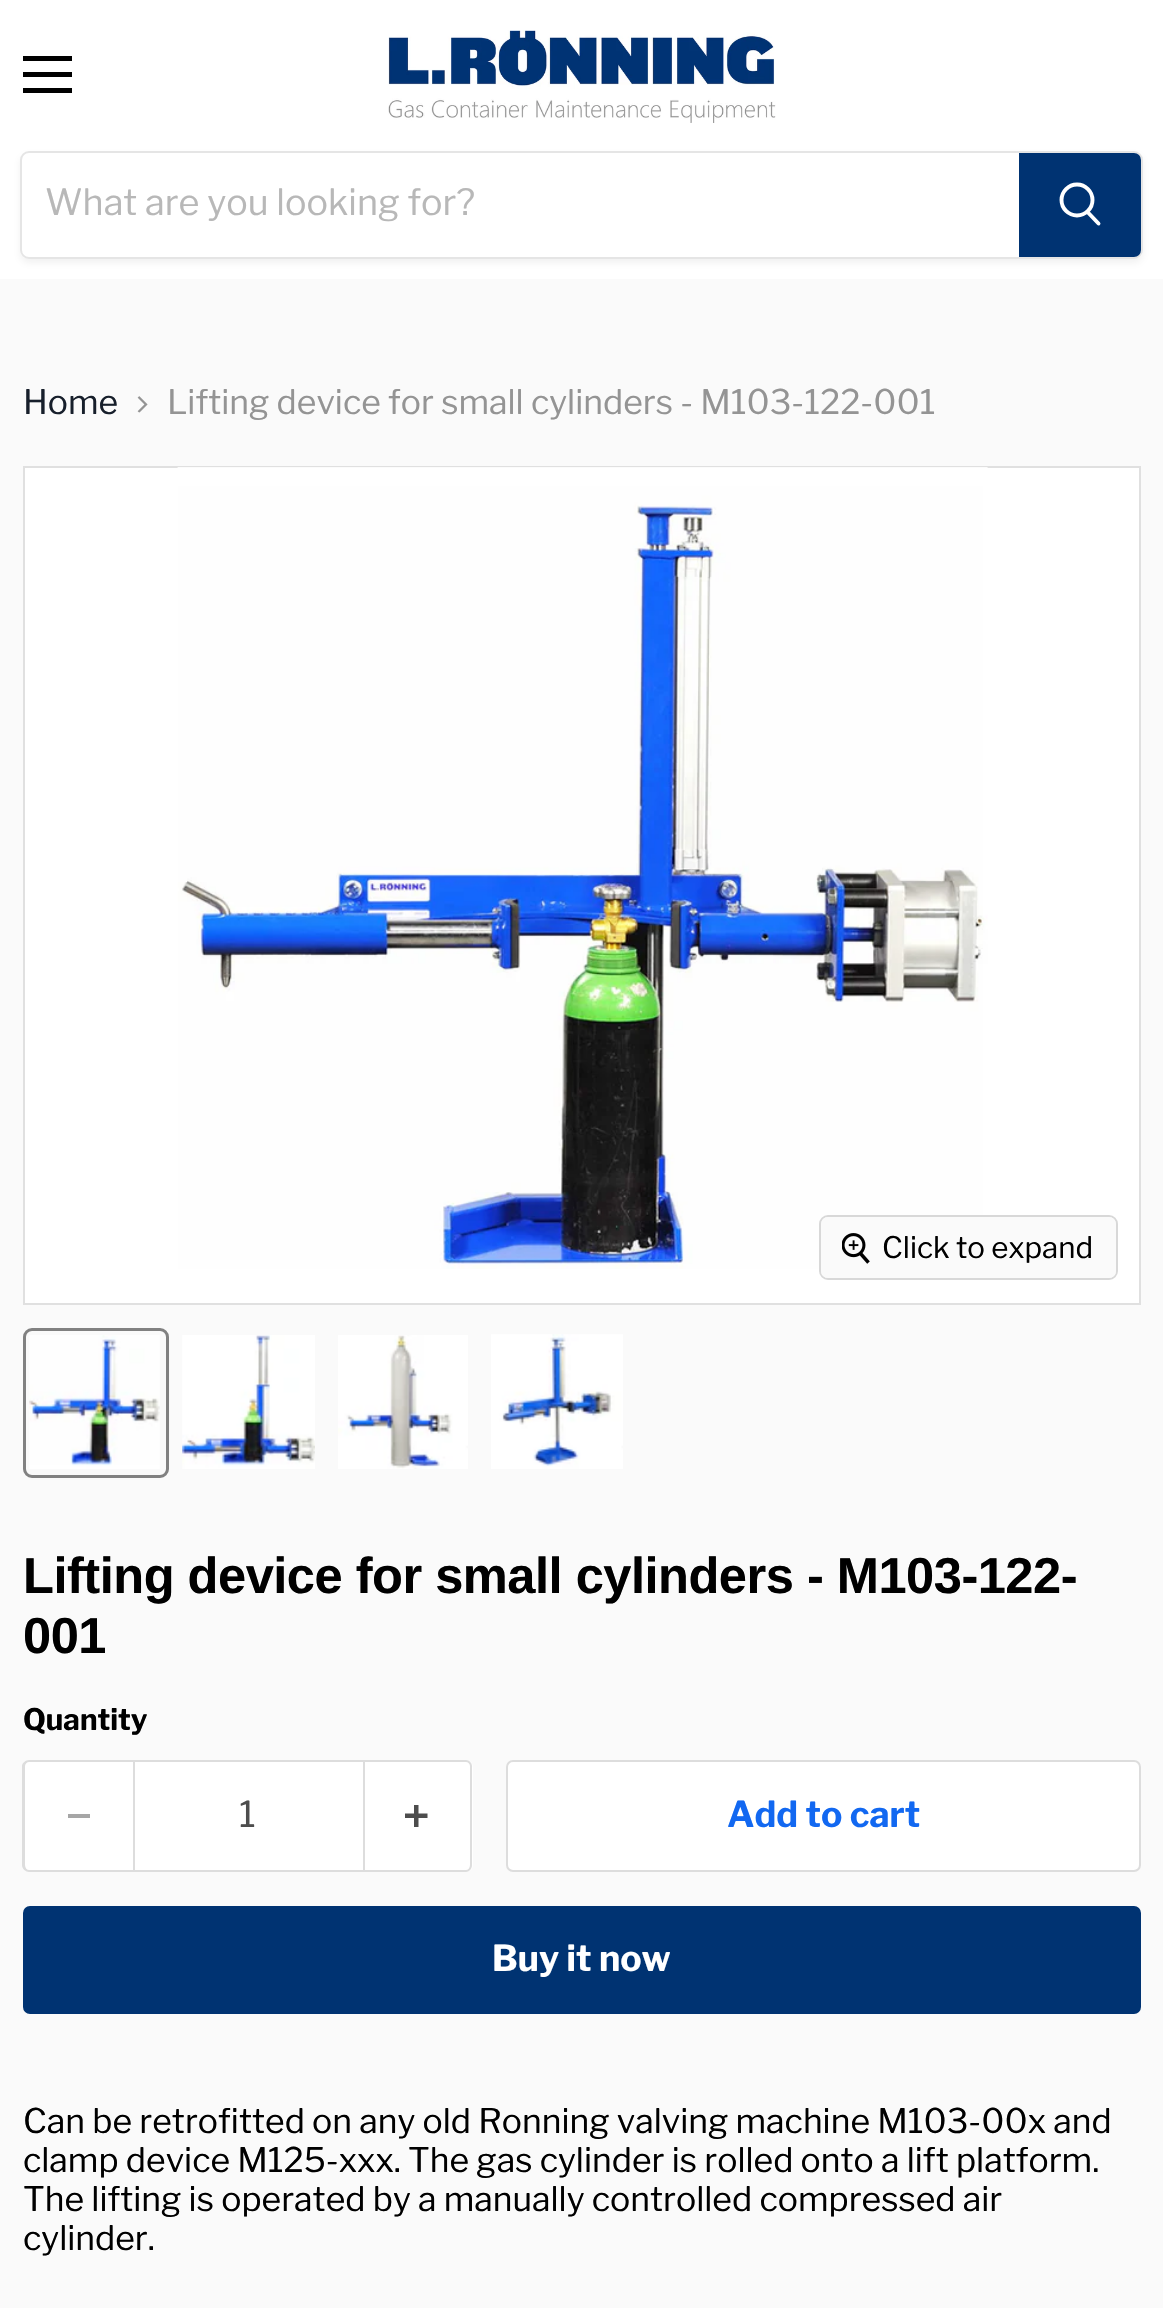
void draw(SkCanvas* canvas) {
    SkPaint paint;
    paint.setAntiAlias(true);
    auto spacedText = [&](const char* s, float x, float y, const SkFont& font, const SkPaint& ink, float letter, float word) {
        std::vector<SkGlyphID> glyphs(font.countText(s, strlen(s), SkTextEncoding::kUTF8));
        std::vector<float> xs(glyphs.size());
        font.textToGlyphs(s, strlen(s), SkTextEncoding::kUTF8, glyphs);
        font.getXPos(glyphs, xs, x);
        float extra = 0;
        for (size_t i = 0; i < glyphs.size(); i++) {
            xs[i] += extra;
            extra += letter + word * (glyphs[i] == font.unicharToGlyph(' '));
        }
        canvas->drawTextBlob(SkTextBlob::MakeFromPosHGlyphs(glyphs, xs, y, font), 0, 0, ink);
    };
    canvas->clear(0xFFFAFAFA);
    paint.setColor(0xFFFFFFFF);
    canvas->drawRect(SkRect::MakeXYWH(0, 0, 1163, 279), paint);
    paint.setColor(0xFF000000);
    canvas->drawRect(SkRect::MakeXYWH(23, 56, 49, 5), paint);
    canvas->drawRect(SkRect::MakeXYWH(23, 72, 49, 5), paint);
    canvas->drawRect(SkRect::MakeXYWH(23, 88, 49, 5), paint);
    canvas->drawImageRect(SkImages::DeferredFromEncodedData(SkData::MakeFromFileName("img1.png")), SkRect::MakeXYWH(388, 30, 388, 93), SkSamplingOptions());
    canvas->save();
    canvas->clipPath(SkPathBuilder(SkPathFillType::kEvenOdd).moveTo(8, 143).lineTo(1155, 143).lineTo(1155, 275).lineTo(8, 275).close().moveTo(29, 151).lineTo(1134, 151).cubicTo(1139, 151, 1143, 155, 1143, 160).lineTo(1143, 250).cubicTo(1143, 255, 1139, 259, 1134, 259).lineTo(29, 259).cubicTo(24, 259, 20, 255, 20, 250).lineTo(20, 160).cubicTo(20, 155, 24, 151, 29, 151).close().detach(), true);
    paint.setColor(0x1C7D7D7D);
    paint.setMaskFilter(SkMaskFilter::MakeBlur(kNormal_SkBlurStyle, 3.5f));
    canvas->drawRoundRect(SkRect::MakeXYWH(20, 155, 1123, 108), 9, 9, paint);
    paint.setMaskFilter(nullptr);
    canvas->restore();
    paint.setStyle(SkPaint::kStroke_Style);
    paint.setStrokeWidth(2);
    paint.setColor(0x337D7D7D);
    canvas->drawRoundRect(SkRect::MakeXYWH(21, 152, 1121, 106), 8, 8, paint);
    SkFont font1(fontMgr->matchFamilyStyle("Libre Franklin", SkFontStyle::Normal()), 36);
    font1.setSubpixel(true);
    paint.setStyle(SkPaint::kFill_Style);
    paint.setColor(0xFFB8B8B8);
    canvas->drawString("What are you looking for?", 45, 215, font1, paint);
    paint.setColor(0xFF003372);
    canvas->drawPath(SkPathBuilder().moveTo(1020, 154).lineTo(1134, 154).cubicTo(1137.5f, 154, 1140, 156.5f, 1140, 160).lineTo(1140, 250).cubicTo(1140, 253.5f, 1137.5f, 256, 1134, 256).lineTo(1020, 256).close().detach(), paint);
    paint.setStyle(SkPaint::kStroke_Style);
    canvas->drawPath(SkPathBuilder().moveTo(1020, 154).lineTo(1134, 154).cubicTo(1137.5f, 154, 1140, 156.5f, 1140, 160).lineTo(1140, 250).cubicTo(1140, 253.5f, 1137.5f, 256, 1134, 256).lineTo(1020, 256).close().detach(), paint);
    paint.setStrokeWidth(3.9f);
    paint.setStrokeCap(SkPaint::kRound_Cap);
    paint.setColor(0xFFFFFFFF);
    canvas->drawPath(SkPathBuilder().moveTo(1098.5f, 223.5f).lineTo(1088, 212.5f).detach(), paint);
    paint.setStrokeCap(SkPaint::kButt_Cap);
    canvas->drawCircle(1077, 200, 15.5f, paint);
    SkFont font2(fontMgr->matchFamilyStyle("Libre Franklin", SkFontStyle::Normal()), 33.75f);
    font2.setSubpixel(true);
    paint.setStyle(SkPaint::kFill_Style);
    paint.setColor(0xFF171F2B);
    canvas->drawString("Home", 23, 414, font2, paint);
    canvas->drawImageRect(SkImages::DeferredFromEncodedData(SkData::MakeFromFileName("img2.png")), SkRect::MakeXYWH(137, 396, 11, 17), SkSamplingOptions());
    paint.setColor(0xFF949494);
    canvas->drawString("Lifting device for small cylinders - M103-122-001", 167, 414, font2, paint);
    paint.setColor(0xFFFFFFFF);
    canvas->drawRect(SkRect::MakeXYWH(24, 467, 1116, 837), paint);
    paint.setStyle(SkPaint::kStroke_Style);
    paint.setStrokeWidth(2);
    paint.setColor(0xFFE0E0E0);
    canvas->drawRect(SkRect::MakeXYWH(24, 467, 1116, 837), paint);
    canvas->drawImageRect(SkImages::DeferredFromEncodedData(SkData::MakeFromFileName("img3.png")), SkRect::MakeXYWH(177, 467, 811, 802), SkSamplingOptions());
    paint.setColor(0xFFD8D8D8);
    canvas->drawRoundRect(SkRect::MakeXYWH(820, 1216, 297, 63), 8, 8, paint);
    paint.setStyle(SkPaint::kFill_Style);
    paint.setColor(0xE6FAFAFA);
    canvas->drawRoundRect(SkRect::MakeXYWH(821, 1217, 295, 61), 7, 7, paint);
    canvas->drawImageRect(SkImages::DeferredFromEncodedData(SkData::MakeFromFileName("img4.png")), SkRect::MakeXYWH(842, 1233, 28, 31), SkSamplingOptions());
    SkFont font3(fontMgr->matchFamilyStyle("Libre Franklin", SkFontStyle::Normal()), 29.5f);
    font3.setSubpixel(true);
    paint.setColor(0xFF000000);
    canvas->drawString("Click to expand", 882, 1258, font3, paint);
    paint.setStyle(SkPaint::kStroke_Style);
    paint.setStrokeWidth(3);
    paint.setColor(0xFF818181);
    canvas->drawRoundRect(SkRect::MakeXYWH(24.5f, 1329.5f, 143, 147), 7.5f, 7.5f, paint);
    canvas->drawImageRect(SkImages::DeferredFromEncodedData(SkData::MakeFromFileName("img5.png")), SkRect::MakeXYWH(29, 1335, 131, 134), SkSamplingOptions());
    canvas->drawImageRect(SkImages::DeferredFromEncodedData(SkData::MakeFromFileName("img6.png")), SkRect::MakeXYWH(182, 1335, 133, 134), SkSamplingOptions());
    canvas->drawImageRect(SkImages::DeferredFromEncodedData(SkData::MakeFromFileName("img7.png")), SkRect::MakeXYWH(338, 1335, 130, 134), SkSamplingOptions());
    canvas->drawImageRect(SkImages::DeferredFromEncodedData(SkData::MakeFromFileName("img8.png")), SkRect::MakeXYWH(491, 1334, 132, 135), SkSamplingOptions());
    SkFont font4(fontMgr->matchFamilyStyle("Arimo", SkFontStyle::Bold()), 50.6f);
    font4.setSubpixel(true);
    paint.setStyle(SkPaint::kFill_Style);
    paint.setColor(0xFF000000);
    spacedText("Lifting device for small cylinders - M103-122-", 23, 1593, font4, paint, -0.5f, 0);
    spacedText("001", 23, 1653, font4, paint, -0.5f, 0);
    SkFont font5(fontMgr->matchFamilyStyle("Libre Franklin", SkFontStyle::Bold()), 29.5f);
    font5.setSubpixel(true);
    canvas->drawString("Quantity", 23, 1730, font5, paint);
    paint.setColor(0xFFFFFFFF);
    canvas->drawPath(SkPathBuilder().moveTo(30, 1760).lineTo(133, 1760).lineTo(133, 1872).lineTo(30, 1872).cubicTo(26, 1872, 23, 1869, 23, 1865).lineTo(23, 1767).cubicTo(23, 1763, 26, 1760, 30, 1760).close().detach(), paint);
    paint.setColor(0xFFDDDDDD);
    canvas->drawPath(SkPathBuilder(SkPathFillType::kEvenOdd).moveTo(29, 1760).lineTo(133, 1760).lineTo(133, 1872).lineTo(29, 1872).cubicTo(26, 1872, 22, 1869, 22, 1865).lineTo(22, 1766).cubicTo(22, 1763, 26, 1760, 29, 1760).close().moveTo(29, 1762).lineTo(133, 1762).lineTo(133, 1870).lineTo(29, 1870).cubicTo(27, 1870, 25, 1868, 25, 1865).lineTo(25, 1766).cubicTo(25, 1764, 27, 1762, 29, 1762).close().detach(), paint);
    paint.setColor(0xFFA6A6A6);
    canvas->drawRect(SkRect::MakeXYWH(68, 1814, 22, 4), paint);
    paint.setColor(0xFFFFFFFF);
    canvas->drawRect(SkRect::MakeXYWH(134, 1761, 230, 110), paint);
    paint.setStyle(SkPaint::kStroke_Style);
    paint.setStrokeWidth(2);
    paint.setColor(0xFFDDDDDD);
    canvas->drawRect(SkRect::MakeXYWH(134, 1761, 230, 110), paint);
    SkFont font6(fontMgr->matchFamilyStyle("Libre Franklin", SkFontStyle::Normal()), 35.75f);
    font6.setSubpixel(true);
    paint.setStyle(SkPaint::kFill_Style);
    paint.setColor(0xFF4D4D4D);
    canvas->drawString("1", 239, 1827, font6, paint);
    paint.setColor(0xFFFFFFFF);
    canvas->drawPath(SkPathBuilder().moveTo(365, 1760).lineTo(466, 1760).cubicTo(470, 1760, 473, 1763, 473, 1767).lineTo(473, 1865).cubicTo(473, 1869, 470, 1872, 466, 1872).lineTo(365, 1872).close().detach(), paint);
    paint.setColor(0xFFDDDDDD);
    canvas->drawPath(SkPathBuilder(SkPathFillType::kEvenOdd).moveTo(364, 1760).lineTo(466, 1760).cubicTo(469, 1760, 472, 1763, 472, 1766).lineTo(472, 1865).cubicTo(472, 1869, 469, 1872, 466, 1872).lineTo(364, 1872).close().moveTo(364, 1762).lineTo(466, 1762).cubicTo(468, 1762, 470, 1764, 470, 1766).lineTo(470, 1865).cubicTo(470, 1868, 468, 1870, 466, 1870).lineTo(364, 1870).close().detach(), paint);
    canvas->drawImageRect(SkImages::DeferredFromEncodedData(SkData::MakeFromFileName("img9.png")), SkRect::MakeXYWH(405, 1805, 23, 22), SkSamplingOptions());
    paint.setColor(0xFFFFFFFF);
    canvas->drawRoundRect(SkRect::MakeXYWH(507, 1761, 633, 110), 6, 6, paint);
    paint.setStyle(SkPaint::kStroke_Style);
    paint.setColor(0xFFDDDDDD);
    canvas->drawRoundRect(SkRect::MakeXYWH(507, 1761, 633, 110), 6, 6, paint);
    SkFont font7(fontMgr->matchFamilyStyle("Libre Franklin", SkFontStyle::Bold()), 35.75f);
    font7.setSubpixel(true);
    paint.setStyle(SkPaint::kFill_Style);
    paint.setColor(0xFF1268F1);
    canvas->drawString("Add to cart", 727, 1827, font7, paint);
    paint.setColor(0xFF003372);
    canvas->drawRoundRect(SkRect::MakeXYWH(24, 1907, 1116, 106), 6, 6, paint);
    paint.setStyle(SkPaint::kStroke_Style);
    canvas->drawRoundRect(SkRect::MakeXYWH(24, 1907, 1116, 106), 6, 6, paint);
    paint.setStyle(SkPaint::kFill_Style);
    paint.setColor(0xFFFFFFFF);
    canvas->drawString("Buy it now", 492, 1971, font7, paint);
    paint.setColor(0xFF000000);
    canvas->drawString("Can be retrofitted on any old Ronning valving machine M103-00x and", 23, 2133, font2, paint);
    canvas->drawString("clamp device M125-xxx. The gas cylinder is rolled onto a lift platform.", 23, 2172, font2, paint);
    canvas->drawString("The lifting is operated by a manually controlled compressed air", 23, 2211, font2, paint);
    canvas->drawString("cylinder.", 23, 2250, font2, paint);
}
